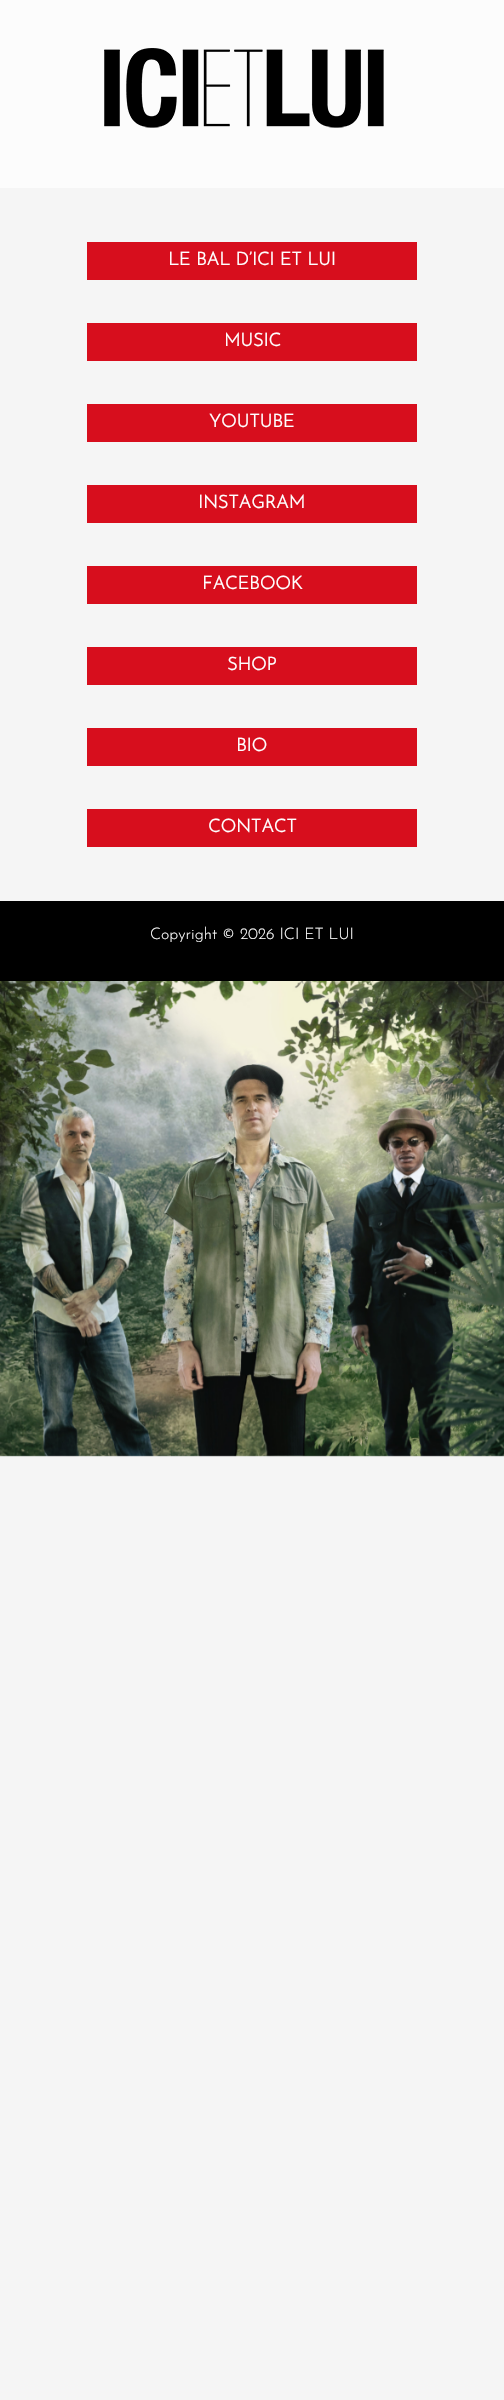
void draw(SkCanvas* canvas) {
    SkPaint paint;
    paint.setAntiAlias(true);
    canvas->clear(0xFFF5F5F5);
    canvas->drawImageRect(SkImages::DeferredFromEncodedData(SkData::MakeFromFileName("img1.png")), SkRect::MakeXYWH(0, 981, 504, 476), SkSamplingOptions());
    paint.setColor(0xFFFCFCFC);
    canvas->drawRect(SkRect::MakeXYWH(0, 0, 504, 188), paint);
    canvas->drawImageRect(SkImages::DeferredFromEncodedData(SkData::MakeFromFileName("img2.png")), SkRect::MakeXYWH(104, 48, 280, 80), SkSamplingOptions());
    paint.setColor(0xFFD70E1D);
    canvas->drawRect(SkRect::MakeXYWH(87, 242, 330, 38), paint);
    SkFont font1(fontMgr->matchFamilyStyle("Josefin Sans", SkFontStyle::Bold()), 18);
    font1.setSubpixel(true);
    paint.setColor(0xFFFFFFFF);
    canvas->drawString("LE BAL D’ICI ET LUI", 168, 265, font1, paint);
    paint.setColor(0xFFD70E1D);
    canvas->drawRect(SkRect::MakeXYWH(87, 323, 330, 38), paint);
    paint.setColor(0xFFFFFFFF);
    canvas->drawString("MUSIC", 224, 346, font1, paint);
    paint.setColor(0xFFD70E1D);
    canvas->drawRect(SkRect::MakeXYWH(87, 404, 330, 38), paint);
    paint.setColor(0xFFFFFFFF);
    canvas->drawString("YOUTUBE", 209, 427, font1, paint);
    paint.setColor(0xFFD70E1D);
    canvas->drawRect(SkRect::MakeXYWH(87, 485, 330, 38), paint);
    paint.setColor(0xFFFFFFFF);
    canvas->drawString("INSTAGRAM", 198, 508, font1, paint);
    paint.setColor(0xFFD70E1D);
    canvas->drawRect(SkRect::MakeXYWH(87, 566, 330, 38), paint);
    paint.setColor(0xFFFFFFFF);
    canvas->drawString("FACEBOOK", 202, 589, font1, paint);
    paint.setColor(0xFFD70E1D);
    canvas->drawRect(SkRect::MakeXYWH(87, 647, 330, 38), paint);
    paint.setColor(0xFFFFFFFF);
    canvas->drawString("SHOP", 227, 670, font1, paint);
    paint.setColor(0xFFD70E1D);
    canvas->drawRect(SkRect::MakeXYWH(87, 728, 330, 38), paint);
    paint.setColor(0xFFFFFFFF);
    canvas->drawString("BIO", 236, 751, font1, paint);
    paint.setColor(0xFFD70E1D);
    canvas->drawRect(SkRect::MakeXYWH(87, 809, 330, 38), paint);
    paint.setColor(0xFFFFFFFF);
    canvas->drawString("CONTACT", 208, 832, font1, paint);
    paint.setColor(0xFF000000);
    canvas->drawRect(SkRect::MakeXYWH(0, 901, 504, 80), paint);
    SkFont font2(fontMgr->matchFamilyStyle("Josefin Sans", SkFontStyle(100, SkFontStyle::kNormal_Width, SkFontStyle::kUpright_Slant)), 16);
    font2.setSubpixel(true);
    paint.setColor(0xFFFFFFFF);
    canvas->drawString("Copyright © 2026 ICI ET LUI", 150, 939, font2, paint);
}
